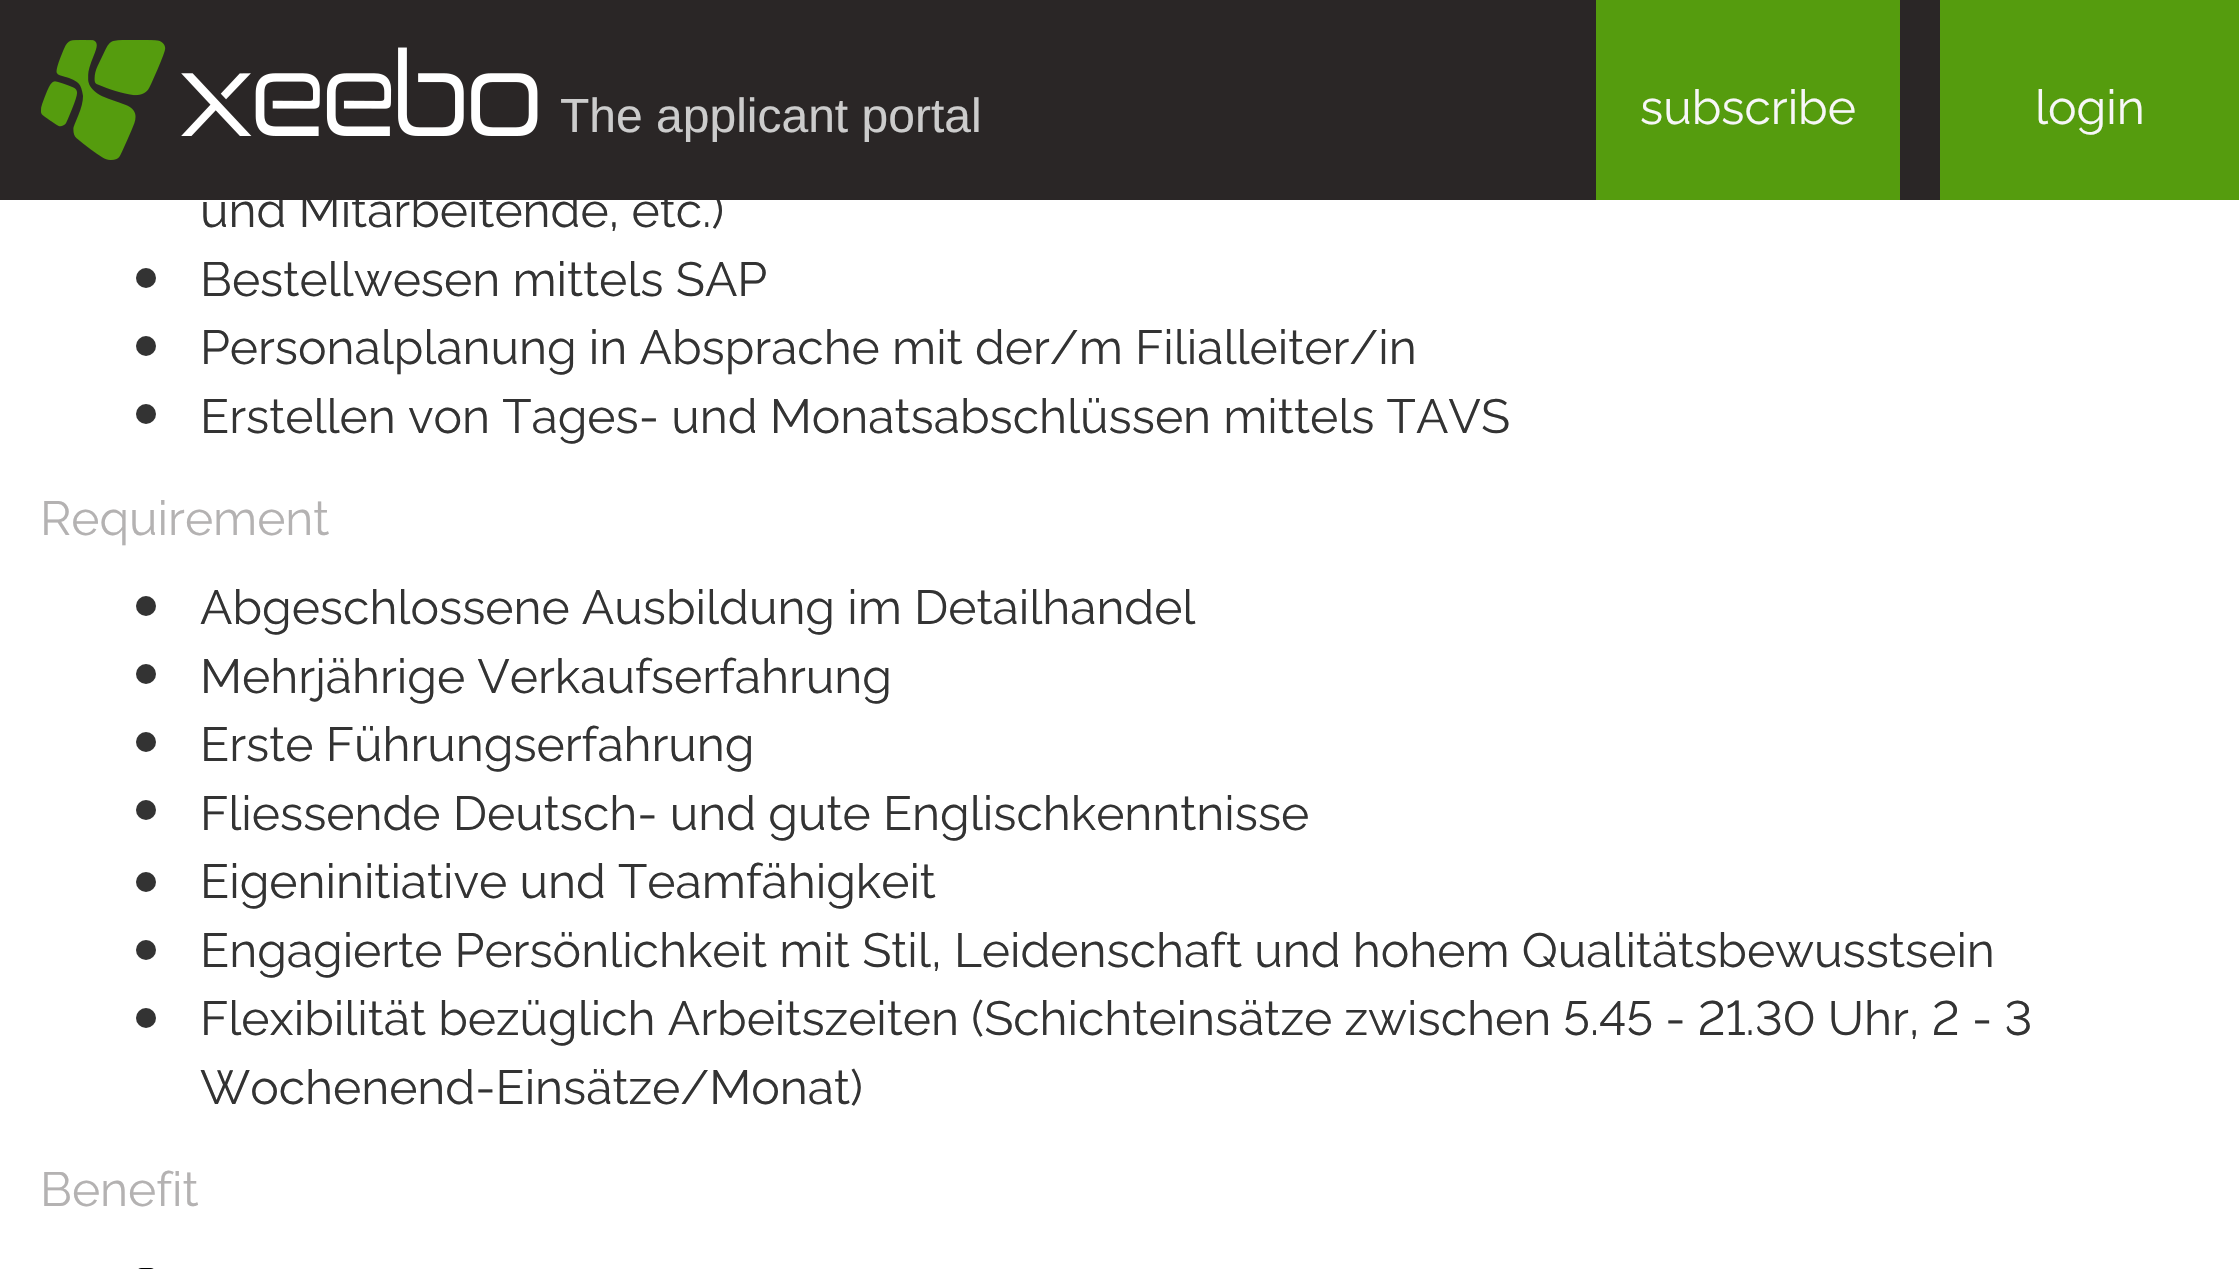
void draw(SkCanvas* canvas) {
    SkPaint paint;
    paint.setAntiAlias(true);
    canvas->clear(0xFFFFFFFF);
    SkFont font1(fontMgr->matchFamilyStyle("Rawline", SkFontStyle::Normal()), 48);
    font1.setSubpixel(true);
    paint.setColor(0xFF333333);
    canvas->drawString("und Mitarbeitende, etc.)", 200, 227, font1, paint);
    paint.setColor(0xFF2A2626);
    canvas->drawRect(SkRect::MakeXYWH(0, 0, 1940, 200), paint);
    canvas->drawImageRect(SkImages::DeferredFromEncodedData(SkData::MakeFromFileName("img1.png")), SkRect::MakeXYWH(41, 40, 125, 120), SkSamplingOptions());
    canvas->drawImageRect(SkImages::DeferredFromEncodedData(SkData::MakeFromFileName("img2.png")), SkRect::MakeXYWH(181, 47, 357, 89), SkSamplingOptions());
    SkFont font2(fontMgr->matchFamilyStyle("Liberation Sans", SkFontStyle::Normal()), 48);
    font2.setSubpixel(true);
    paint.setColor(0xFFCCCCCC);
    canvas->drawString("The applicant portal", 560, 132, font2, paint);
    paint.setColor(0xFF559C0E);
    canvas->drawRect(SkRect::MakeXYWH(1596, 0, 304, 200), paint);
    paint.setColor(0xFFF7F7F7);
    canvas->drawString("subscribe", 1640, 124, font1, paint);
    paint.setColor(0xFF559C0E);
    canvas->drawRect(SkRect::MakeXYWH(1940, 0, 299, 200), paint);
    paint.setColor(0xFFF7F7F7);
    canvas->drawString("login", 2035, 124, font1, paint);
    paint.setColor(0xFF333333);
    canvas->drawCircle(146, 278, 10, paint);
    canvas->drawString("Bestellwesen mittels SAP", 200, 296, font1, paint);
    canvas->drawCircle(146, 346, 10, paint);
    canvas->drawString("Personalplanung in Absprache mit der/m Filialleiter/in", 200, 364, font1, paint);
    canvas->drawCircle(146, 414, 10, paint);
    canvas->drawString("Erstellen von Tages- und Monatsabschlüssen mittels TAVS", 200, 433, font1, paint);
    paint.setColor(0xFFB4B2B2);
    canvas->drawString("Requirement", 40, 535, font1, paint);
    paint.setColor(0xFF333333);
    canvas->drawCircle(146, 606, 10, paint);
    canvas->drawString("Abgeschlossene Ausbildung im Detailhandel", 200, 624, font1, paint);
    canvas->drawCircle(146, 674, 10, paint);
    canvas->drawString("Mehrjährige Verkaufserfahrung", 200, 693, font1, paint);
    canvas->drawCircle(146, 742, 10, paint);
    canvas->drawString("Erste Führungserfahrung", 200, 761, font1, paint);
    canvas->drawCircle(146, 810, 10, paint);
    canvas->drawString("Fliessende Deutsch- und gute Englischkenntnisse", 200, 830, font1, paint);
    canvas->drawCircle(146, 882, 10, paint);
    canvas->drawString("Eigeninitiative und Teamfähigkeit", 200, 898, font1, paint);
    canvas->drawCircle(146, 950, 10, paint);
    canvas->drawString("Engagierte Persönlichkeit mit Stil, Leidenschaft und hohem Qualitätsbewusstsein", 200, 967, font1, paint);
    canvas->drawCircle(146, 1018, 10, paint);
    canvas->drawString("Flexibilität bezüglich Arbeitszeiten (Schichteinsätze zwischen 5.45 - 21.30 Uhr, 2 - 3", 200, 1035, font1, paint);
    canvas->drawString("Wochenend-Einsätze/Monat)", 200, 1104, font1, paint);
    paint.setColor(0xFFB4B2B2);
    canvas->drawString("Benefit", 40, 1206, font1, paint);
    paint.setColor(0xFF000000);
    canvas->drawRoundRect(SkRect::MakeXYWH(136, 1268, 20, 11), 10, 10, paint);
}
